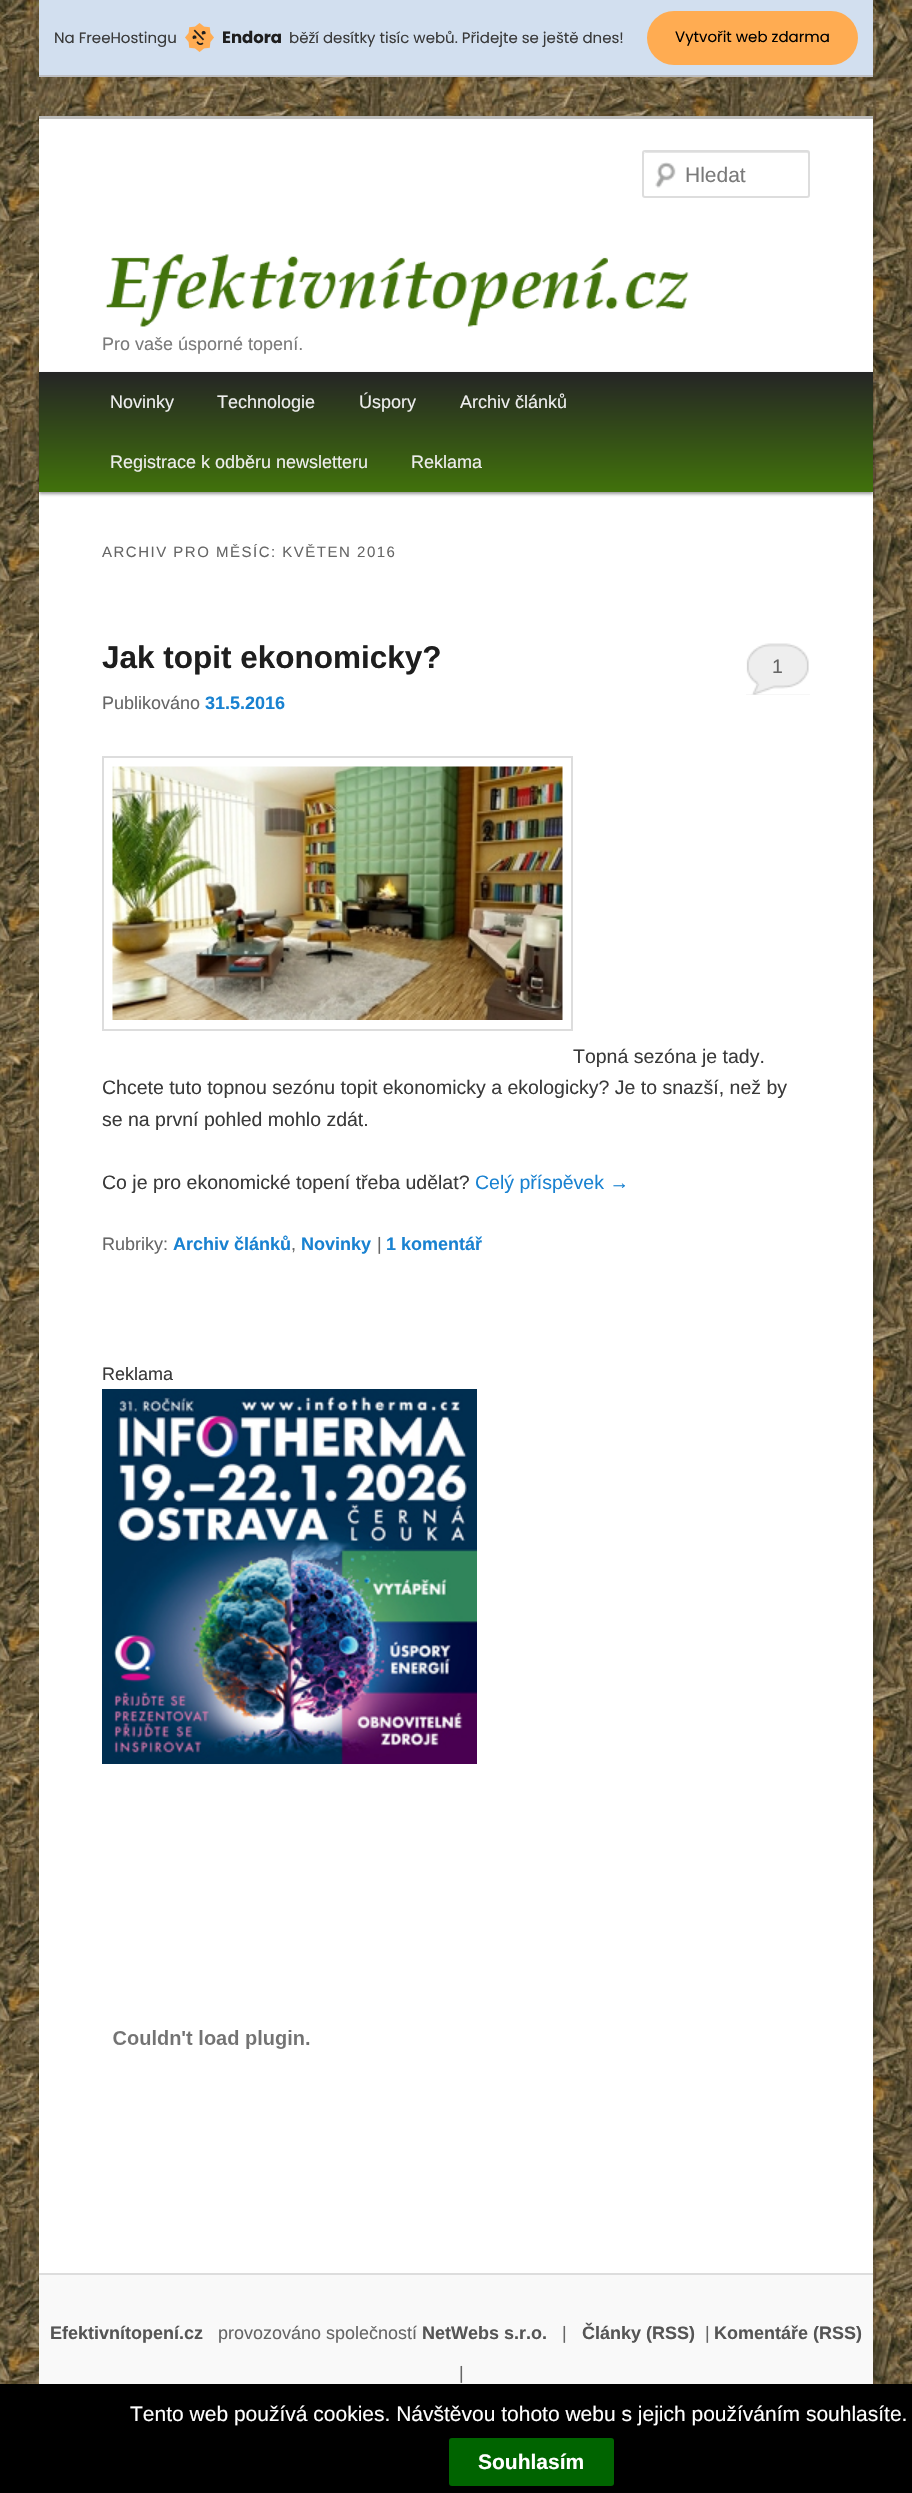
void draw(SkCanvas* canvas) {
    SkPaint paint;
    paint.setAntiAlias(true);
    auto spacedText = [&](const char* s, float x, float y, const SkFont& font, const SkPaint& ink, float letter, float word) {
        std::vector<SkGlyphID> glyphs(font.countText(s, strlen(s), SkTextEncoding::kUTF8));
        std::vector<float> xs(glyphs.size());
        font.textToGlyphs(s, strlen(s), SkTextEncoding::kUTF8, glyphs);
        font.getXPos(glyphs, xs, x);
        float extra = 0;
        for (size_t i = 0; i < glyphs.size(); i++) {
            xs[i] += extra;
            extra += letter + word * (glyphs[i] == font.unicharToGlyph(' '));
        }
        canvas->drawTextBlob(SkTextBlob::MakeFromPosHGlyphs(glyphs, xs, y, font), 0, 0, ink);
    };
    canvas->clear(0xFFFFFFFF);
    canvas->drawImageRect(SkImages::DeferredFromEncodedData(SkData::MakeFromFileName("img1.png")), SkRect::MakeXYWH(0, 0, 912, 2384), SkSamplingOptions());
    paint.setColor(0xFFD2DFEF);
    canvas->drawRect(SkRect::MakeXYWH(39, 0, 834, 75), paint);
    paint.setColor(0xFFBEBFC4);
    canvas->drawRect(SkRect::MakeXYWH(39, 75, 834, 2), paint);
    SkFont font1(fontMgr->matchFamilyStyle("Poppins", SkFontStyle::Normal()), 15);
    font1.setSubpixel(true);
    paint.setColor(0xFF3A3A3A);
    canvas->drawString("Na FreeHostingu", 54, 43, font1, paint);
    canvas->drawImageRect(SkImages::DeferredFromEncodedData(SkData::MakeFromFileName("img2.png")), SkRect::MakeXYWH(185, 23, 29, 29), SkSamplingOptions());
    SkFont font2(fontMgr->matchFamilyStyle("Poppins", SkFontStyle::Bold()), 16.5f);
    font2.setSubpixel(true);
    paint.setColor(0xFF1E1E1E);
    canvas->drawString("Endora", 222, 43, font2, paint);
    paint.setColor(0xFF3A3A3A);
    canvas->drawString("běží desítky tisíc webů. Přidejte se ještě dnes!", 289, 43, font1, paint);
    paint.setColor(0xFFFFAC52);
    canvas->drawRoundRect(SkRect::MakeXYWH(647, 11, 211, 54), 27, 27, paint);
    paint.setColor(0xFF000000);
    canvas->drawString("Vytvořit web zdarma", 675, 42, font1, paint);
    paint.setColor(0xFFFFFFFF);
    canvas->drawRect(SkRect::MakeXYWH(39, 119, 834, 2154), paint);
    paint.setColor(0xFFBBBBBB);
    canvas->drawRect(SkRect::MakeXYWH(39, 116, 834, 3), paint);
    canvas->drawImageRect(SkImages::DeferredFromEncodedData(SkData::MakeFromFileName("img3.png")), SkRect::MakeXYWH(655, 162, 21, 26), SkSamplingOptions());
    paint.setColor(0xFFE6E6E6);
    canvas->drawPath(SkPathBuilder().moveTo(645, 153).lineTo(807, 153).cubicTo(808, 153, 808, 154, 808, 154).lineTo(808, 197).cubicTo(809, 197, 809, 196, 809, 196).lineTo(809, 154).cubicTo(809, 153, 808, 152, 808, 152).lineTo(646, 152).cubicTo(645, 152, 644, 153, 644, 154).close().detach(), paint);
    paint.setStyle(SkPaint::kStroke_Style);
    paint.setStrokeWidth(2);
    paint.setColor(0xFFDDDDDD);
    canvas->drawRoundRect(SkRect::MakeXYWH(643, 151, 166, 46), 2, 2, paint);
    SkFont font3(fontMgr->matchFamilyStyle("Liberation Sans", SkFontStyle::Normal()), 21);
    font3.setSubpixel(true);
    paint.setStyle(SkPaint::kFill_Style);
    paint.setColor(0xFF7A7A7A);
    canvas->drawString("Hledat", 685, 182, font3, paint);
    canvas->drawImageRect(SkImages::DeferredFromEncodedData(SkData::MakeFromFileName("img4.png")), SkRect::MakeXYWH(105, 254, 584, 73), SkSamplingOptions());
    SkFont font4(fontMgr->matchFamilyStyle("Liberation Sans", SkFontStyle::Normal()), 18);
    font4.setSubpixel(true);
    canvas->drawString("Pro vaše úsporné topení.", 102, 350, font4, paint);
    paint.setColor(0x66000000);
    paint.setMaskFilter(SkMaskFilter::MakeBlur(kNormal_SkBlurStyle, 1.5f));
    canvas->drawRect(SkRect::MakeXYWH(39, 374, 834, 120), paint);
    paint.setMaskFilter(nullptr);
    {
        const SkColor colors[] = {0xFF252525, 0xFF41720B};
        const float stops[] = {0, 1};
        const SkPoint ends[] = {{456, 372}, {456, 492}};
        paint.setShader(SkGradientShader::MakeLinear(ends, colors, stops, 2, SkTileMode::kClamp));
        paint.setAlpha(255);
    }
    canvas->drawRect(SkRect::MakeXYWH(39, 372, 834, 120), paint);
    paint.setShader(nullptr);
    paint.setColor(0xFFEEEEEE);
    canvas->drawString("Novinky", 110, 408, font4, paint);
    canvas->drawString("Technologie", 217, 408, font4, paint);
    canvas->drawString("Úspory", 359, 408, font4, paint);
    canvas->drawString("Archiv článků", 460, 408, font4, paint);
    canvas->drawString("Registrace k odběru newsletteru", 110, 468, font4, paint);
    canvas->drawString("Reklama", 411, 468, font4, paint);
    SkFont font5(fontMgr->matchFamilyStyle("Liberation Sans", SkFontStyle::Normal()), 15);
    font5.setSubpixel(true);
    paint.setColor(0xFF666666);
    spacedText("ARCHIV PRO MĚSÍC: KVĚTEN 2016", 102, 557, font5, paint, 1.5f, 0);
    SkFont font6(fontMgr->matchFamilyStyle("Liberation Sans", SkFontStyle::Bold()), 31.5f);
    font6.setSubpixel(true);
    paint.setColor(0xFF1E1E1E);
    canvas->drawString("Jak topit ekonomicky?", 102, 668, font6, paint);
    paint.setColor(0xFFEEEEEE);
    canvas->drawRect(SkRect::MakeXYWH(746, 643, 64, 52), paint);
    canvas->drawImageRect(SkImages::DeferredFromEncodedData(SkData::MakeFromFileName("img5.png")), SkRect::MakeXYWH(746, 641, 64, 54), SkSamplingOptions());
    SkFont font7(fontMgr->matchFamilyStyle("Liberation Sans", SkFontStyle::Normal()), 19.5f);
    font7.setSubpixel(true);
    paint.setColor(0xFF666666);
    canvas->drawString("1", 772, 673, font7, paint);
    canvas->drawString("Publikováno", 102, 709, font4, paint);
    SkFont font8(fontMgr->matchFamilyStyle("Liberation Sans", SkFontStyle::Bold()), 18);
    font8.setSubpixel(true);
    paint.setColor(0xFF1982D1);
    canvas->drawString("31.5.2016", 205, 709, font8, paint);
    paint.setStyle(SkPaint::kStroke_Style);
    paint.setColor(0xFFDDDDDD);
    canvas->drawRect(SkRect::MakeXYWH(103, 757, 469, 273), paint);
    canvas->drawImageRect(SkImages::DeferredFromEncodedData(SkData::MakeFromFileName("img6.png")), SkRect::MakeXYWH(112, 766, 451, 254), SkSamplingOptions());
    paint.setStyle(SkPaint::kFill_Style);
    paint.setColor(0xFF3A3A3A);
    canvas->drawString("Topná sezóna je tady.", 573, 1063, font7, paint);
    canvas->drawString("Chcete tuto topnou sezónu topit ekonomicky a ekologicky? Je to snazší, než by", 102, 1094, font7, paint);
    canvas->drawString("se na první pohled mohlo zdát.", 102, 1126, font7, paint);
    canvas->drawString("Co je pro ekonomické topení třeba udělat?", 102, 1189, font7, paint);
    paint.setColor(0xFF1982D1);
    canvas->drawString("Celý příspěvek →", 475, 1189, font7, paint);
    paint.setColor(0xFF666666);
    canvas->drawString("Rubriky:", 102, 1250, font4, paint);
    paint.setColor(0xFF1982D1);
    canvas->drawString("Archiv článků", 173, 1250, font8, paint);
    paint.setColor(0xFF666666);
    canvas->drawString(",", 291, 1250, font4, paint);
    paint.setColor(0xFF1982D1);
    canvas->drawString("Novinky", 301, 1250, font8, paint);
    paint.setColor(0xFF666666);
    canvas->drawString("|", 377, 1250, font4, paint);
    paint.setColor(0xFF1982D1);
    canvas->drawString("1 komentář", 386, 1250, font8, paint);
    paint.setColor(0xFF3A3A3A);
    canvas->drawString("Reklama", 102, 1380, font4, paint);
    canvas->drawImageRect(SkImages::DeferredFromEncodedData(SkData::MakeFromFileName("img7.png")), SkRect::MakeXYWH(102, 1389, 375, 375), SkSamplingOptions());
    canvas->drawImageRect(SkImages::DeferredFromEncodedData(SkData::MakeFromFileName("img8.png")), SkRect::MakeXYWH(113, 2030, 197, 19), SkSamplingOptions());
    paint.setColor(0xFFF9F9F9);
    canvas->drawRect(SkRect::MakeXYWH(39, 2275, 834, 109), paint);
    paint.setColor(0xFFDDDDDD);
    canvas->drawRect(SkRect::MakeXYWH(39, 2273, 834, 2), paint);
    paint.setColor(0xFF555555);
    canvas->drawString("Efektivnítopení.cz", 50, 2339, font8, paint);
    paint.setColor(0xFF666666);
    canvas->drawString("provozováno společností", 218, 2339, font4, paint);
    paint.setColor(0xFF555555);
    canvas->drawString("NetWebs s.r.o.", 422, 2339, font8, paint);
    paint.setColor(0xFF666666);
    canvas->drawString("|", 562, 2339, font4, paint);
    paint.setColor(0xFF555555);
    canvas->drawString("Články (RSS)", 582, 2339, font8, paint);
    paint.setColor(0xFF666666);
    canvas->drawString("|", 705, 2339, font4, paint);
    paint.setColor(0xFF555555);
    canvas->drawString("Komentáře (RSS)", 714, 2339, font8, paint);
    paint.setColor(0xFF666666);
    canvas->drawString("|", 459, 2379, font4, paint);
    paint.setColor(0xFF000000);
    canvas->drawRect(SkRect::MakeXYWH(0, 2384, 912, 109), paint);
    paint.setColor(0xFFFFFFFF);
    canvas->drawString("Tento web používá cookies. Návštěvou tohoto webu s jejich používáním souhlasíte.", 130, 2421, font3, paint);
    paint.setColor(0xFF006400);
    canvas->drawRoundRect(SkRect::MakeXYWH(449, 2438, 165, 48), 3, 3, paint);
    SkFont font9(fontMgr->matchFamilyStyle("Liberation Sans", SkFontStyle::Bold()), 21);
    font9.setSubpixel(true);
    paint.setColor(0xFFFFFFFF);
    canvas->drawString("Souhlasím", 478, 2469, font9, paint);
}
